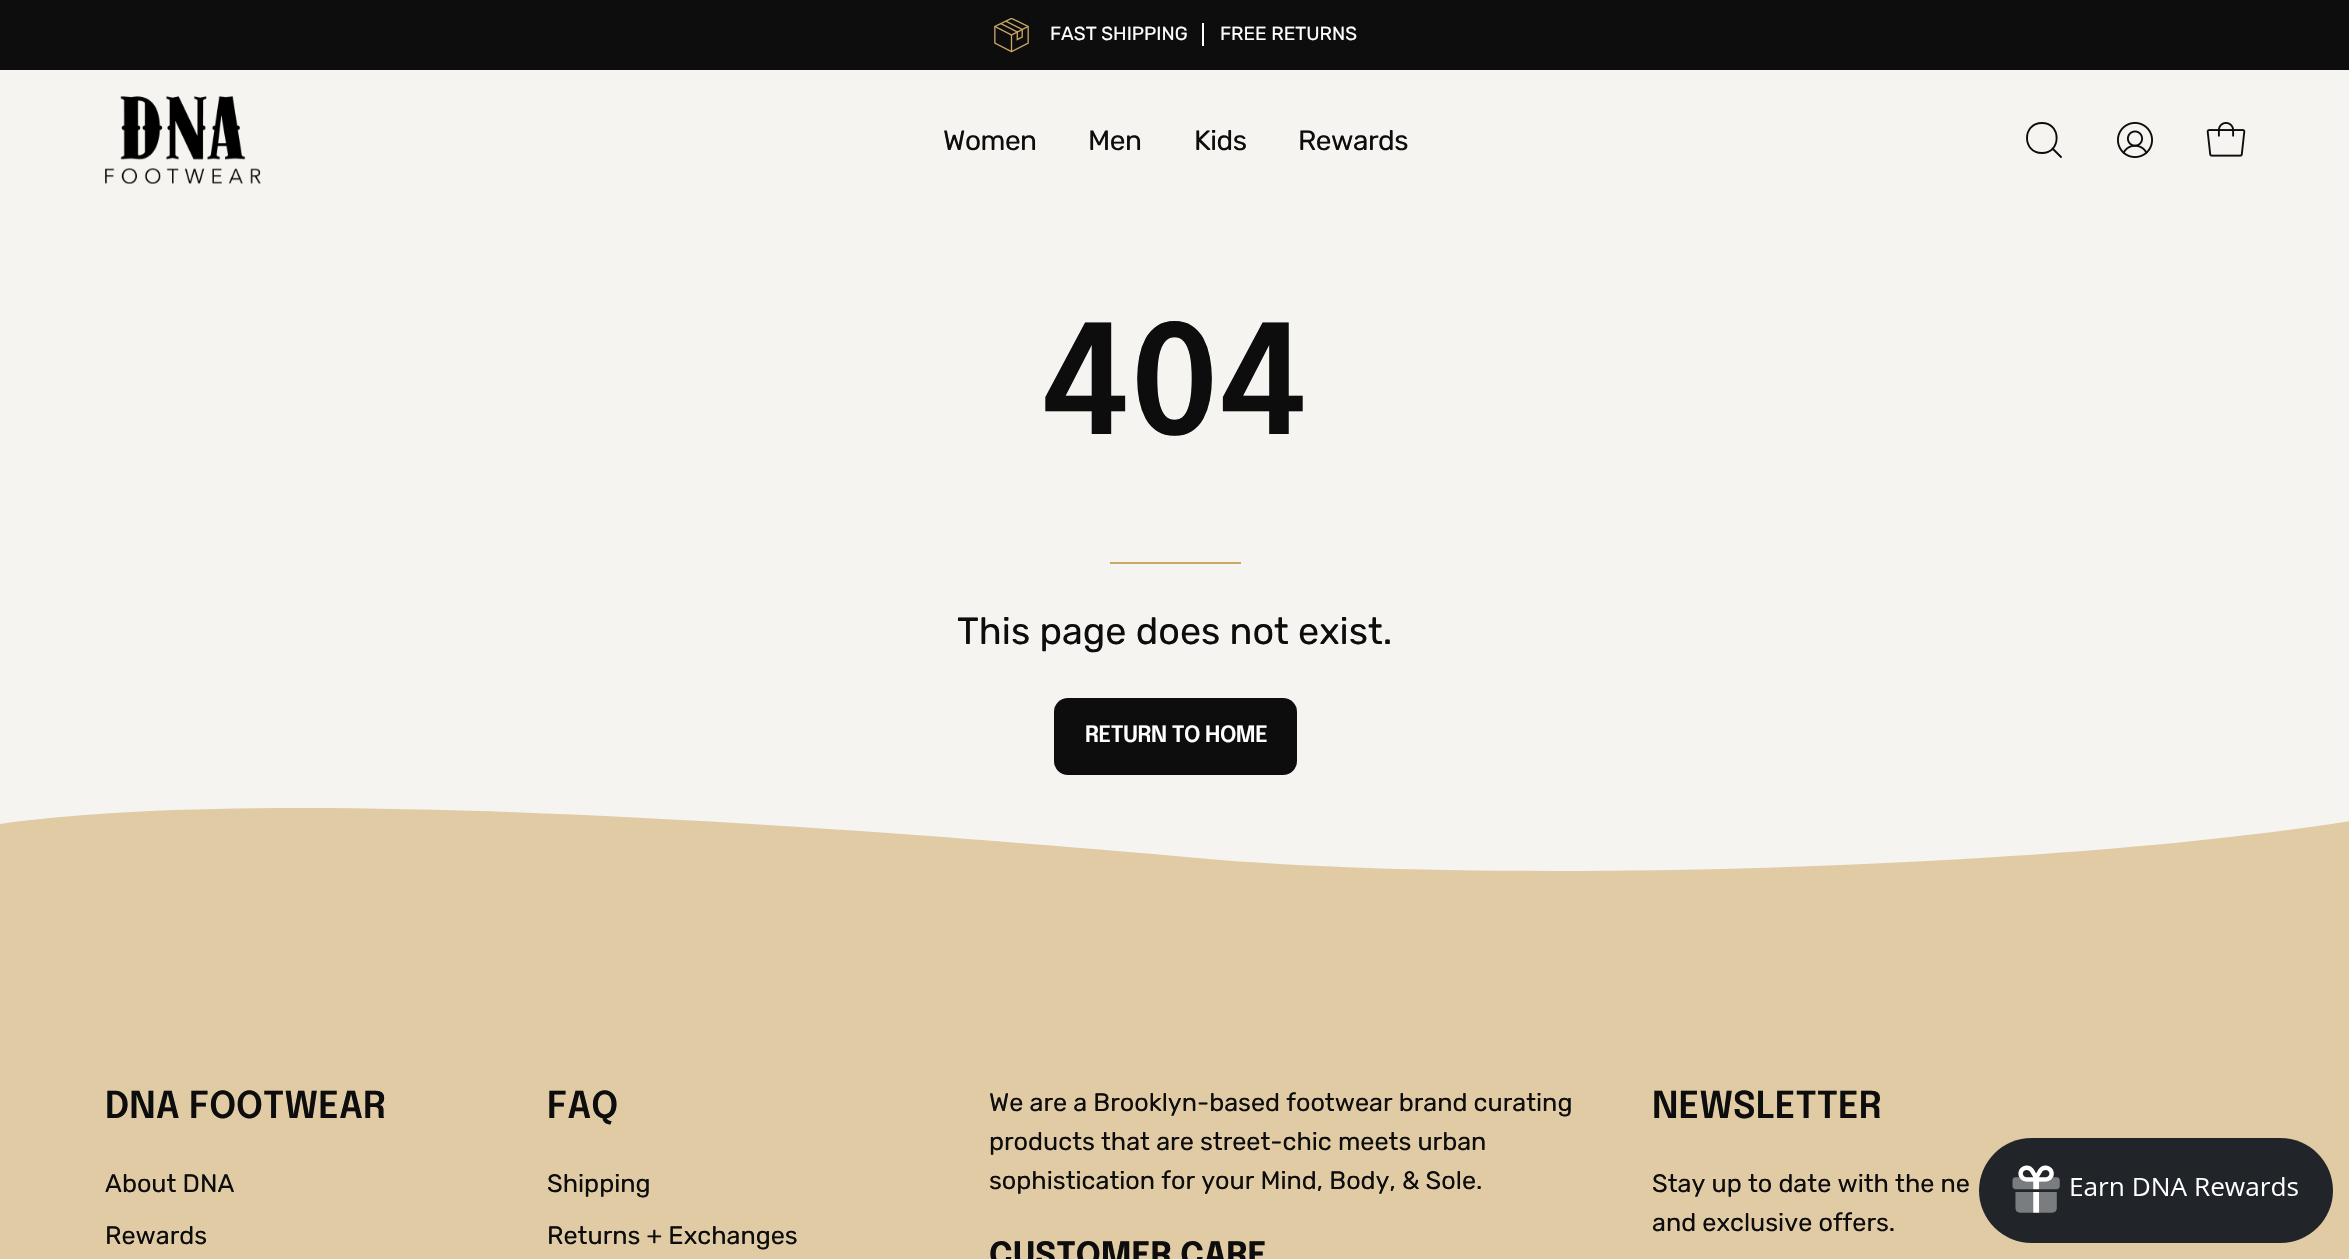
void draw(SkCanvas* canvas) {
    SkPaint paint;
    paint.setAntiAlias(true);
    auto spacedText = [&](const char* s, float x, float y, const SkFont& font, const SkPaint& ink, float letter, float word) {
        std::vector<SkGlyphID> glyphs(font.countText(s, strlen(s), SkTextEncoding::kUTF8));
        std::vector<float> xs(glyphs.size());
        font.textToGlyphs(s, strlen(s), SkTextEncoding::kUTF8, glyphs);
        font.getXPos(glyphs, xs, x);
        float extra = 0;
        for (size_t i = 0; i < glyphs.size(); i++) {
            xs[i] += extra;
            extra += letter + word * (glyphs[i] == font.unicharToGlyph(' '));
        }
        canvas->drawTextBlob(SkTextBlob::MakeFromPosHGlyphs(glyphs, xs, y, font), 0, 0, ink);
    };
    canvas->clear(0xFFF5F4F1);
    paint.setColor(0xFF0D0D0D);
    canvas->drawRect(SkRect::MakeXYWH(0, 0, 2349, 70), paint);
    canvas->drawImageRect(SkImages::DeferredFromEncodedData(SkData::MakeFromFileName("img1.png")), SkRect::MakeXYWH(994, 18, 35, 35), SkSamplingOptions());
    SkFont font1(fontMgr->matchFamilyStyle("Rubik", SkFontStyle::Normal()), 19);
    font1.setSubpixel(true);
    paint.setColor(0xFFFFFFFF);
    canvas->drawString("FAST SHIPPING", 1050, 40, font1, paint);
    canvas->drawRect(SkRect::MakeXYWH(1202, 23, 2, 23), paint);
    canvas->drawString("FREE RETURNS", 1220, 40, font1, paint);
    canvas->drawImageRect(SkImages::DeferredFromEncodedData(SkData::MakeFromFileName("img2.png")), SkRect::MakeXYWH(105, 96, 156, 88), SkSamplingOptions());
    SkFont font2(fontMgr->matchFamilyStyle("Rubik", SkFontStyle::Normal()), 28);
    font2.setSubpixel(true);
    paint.setColor(0xFF0D0D0D);
    spacedText("Women", 943, 150, font2, paint, -0.5f, 0);
    spacedText("Men", 1088, 150, font2, paint, -0.5f, 0);
    spacedText("Kids", 1194, 150, font2, paint, -0.5f, 0);
    spacedText("Rewards", 1298, 150, font2, paint, -0.5f, 0);
    paint.setStyle(SkPaint::kStroke_Style);
    paint.setStrokeWidth(1.9f);
    paint.setStrokeCap(SkPaint::kRound_Cap);
    paint.setStrokeJoin(SkPaint::kRound_Join);
    canvas->drawPath(SkPathBuilder().moveTo(2042, 153).cubicTo(2061.5f, 153, 2061.5f, 123, 2042, 123).cubicTo(2022, 123, 2022, 153, 2042, 153).close().moveTo(2052.5f, 148.5f).lineTo(2061, 157).detach(), paint);
    canvas->drawImageRect(SkImages::DeferredFromEncodedData(SkData::MakeFromFileName("img3.png")), SkRect::MakeXYWH(2117, 122, 36, 36), SkSamplingOptions());
    canvas->drawImageRect(SkImages::DeferredFromEncodedData(SkData::MakeFromFileName("img4.png")), SkRect::MakeXYWH(2206, 122, 40, 35), SkSamplingOptions());
    SkFont font3(fontMgr->matchFamilyStyle("Epilogue", SkFontStyle(600, SkFontStyle::kNormal_Width, SkFontStyle::kUpright_Slant)), 151);
    font3.setSubpixel(true);
    paint.setStyle(SkPaint::kFill_Style);
    canvas->drawString("404", 1042, 434, font3, paint);
    paint.setColor(0xFFCCA867);
    canvas->drawRect(SkRect::MakeXYWH(1110, 562, 131, 2), paint);
    SkFont font4(fontMgr->matchFamilyStyle("Rubik", SkFontStyle::Normal()), 37.75f);
    font4.setSubpixel(true);
    paint.setColor(0xFF0D0D0D);
    canvas->drawString("This page does not exist.", 957, 644, font4, paint);
    canvas->drawRoundRect(SkRect::MakeXYWH(1054, 698, 243, 77), 14, 14, paint);
    SkFont font5(fontMgr->matchFamilyStyle("Epilogue", SkFontStyle(600, SkFontStyle::kNormal_Width, SkFontStyle::kUpright_Slant)), 22.5f);
    font5.setSubpixel(true);
    paint.setColor(0xFFFFFFFF);
    spacedText("RETURN TO HOME", 1085, 742, font5, paint, -0.5f, 0);
    paint.setColor(0xFFE0CBA4);
    canvas->drawRect(SkRect::MakeXYWH(0, 982, 2349, 277), paint);
    canvas->drawPath(SkPathBuilder().moveTo(0, 824).cubicTo(269, 786, 806, 824, 1175, 856).cubicTo(1477, 886, 2048, 869, 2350, 821).lineTo(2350, 908).lineTo(0, 908).detach(), paint);
    canvas->save();
    canvas->clipRect(SkRect::MakeXYWH(0, 807, 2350, 175));
    canvas->drawPath(SkPathBuilder().moveTo(0, 859).cubicTo(269, 828, 772, 838, 1175, 872).cubicTo(1444, 894, 2048, 901, 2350, 863).lineTo(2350, 1038).lineTo(0, 1038).close().detach(), paint);
    canvas->restore();
    SkFont font6(fontMgr->matchFamilyStyle("Epilogue", SkFontStyle(600, SkFontStyle::kNormal_Width, SkFontStyle::kUpright_Slant)), 37);
    font6.setSubpixel(true);
    paint.setColor(0xFF0D0D0D);
    canvas->drawString("DNA FOOTWEAR", 105, 1118, font6, paint);
    SkFont font7(fontMgr->matchFamilyStyle("Rubik", SkFontStyle::Normal()), 25.2f);
    font7.setSubpixel(true);
    canvas->drawString("About DNA", 105, 1192, font7, paint);
    canvas->drawString("Rewards", 105, 1244, font7, paint);
    canvas->drawString("FAQ", 547, 1118, font6, paint);
    canvas->drawString("Shipping", 547, 1192, font7, paint);
    canvas->drawString("Returns + Exchanges", 547, 1244, font7, paint);
    canvas->drawString("We are a Brooklyn-based footwear brand curating", 989, 1111, font7, paint);
    canvas->drawString("products that are street-chic meets urban", 989, 1150, font7, paint);
    canvas->drawString("sophistication for your Mind, Body, & Sole.", 989, 1189, font7, paint);
    SkFont font8(fontMgr->matchFamilyStyle("Epilogue", SkFontStyle::Bold()), 33.5f);
    font8.setSubpixel(true);
    canvas->drawString("CUSTOMER CARE", 989, 1266, font8, paint);
    canvas->drawString("NEWSLETTER", 1652, 1118, font6, paint);
    canvas->drawString("Stay up to date with the ne", 1652, 1192, font7, paint);
    canvas->drawString("and exclusive offers.", 1652, 1231, font7, paint);
    paint.setColor(0xFF212529);
    canvas->drawRoundRect(SkRect::MakeXYWH(1979, 1138, 354, 105), 52.5f, 52.5f, paint);
    canvas->drawImageRect(SkImages::DeferredFromEncodedData(SkData::MakeFromFileName("img5.png")), SkRect::MakeXYWH(2012, 1165, 286, 48), SkSamplingOptions());
}
